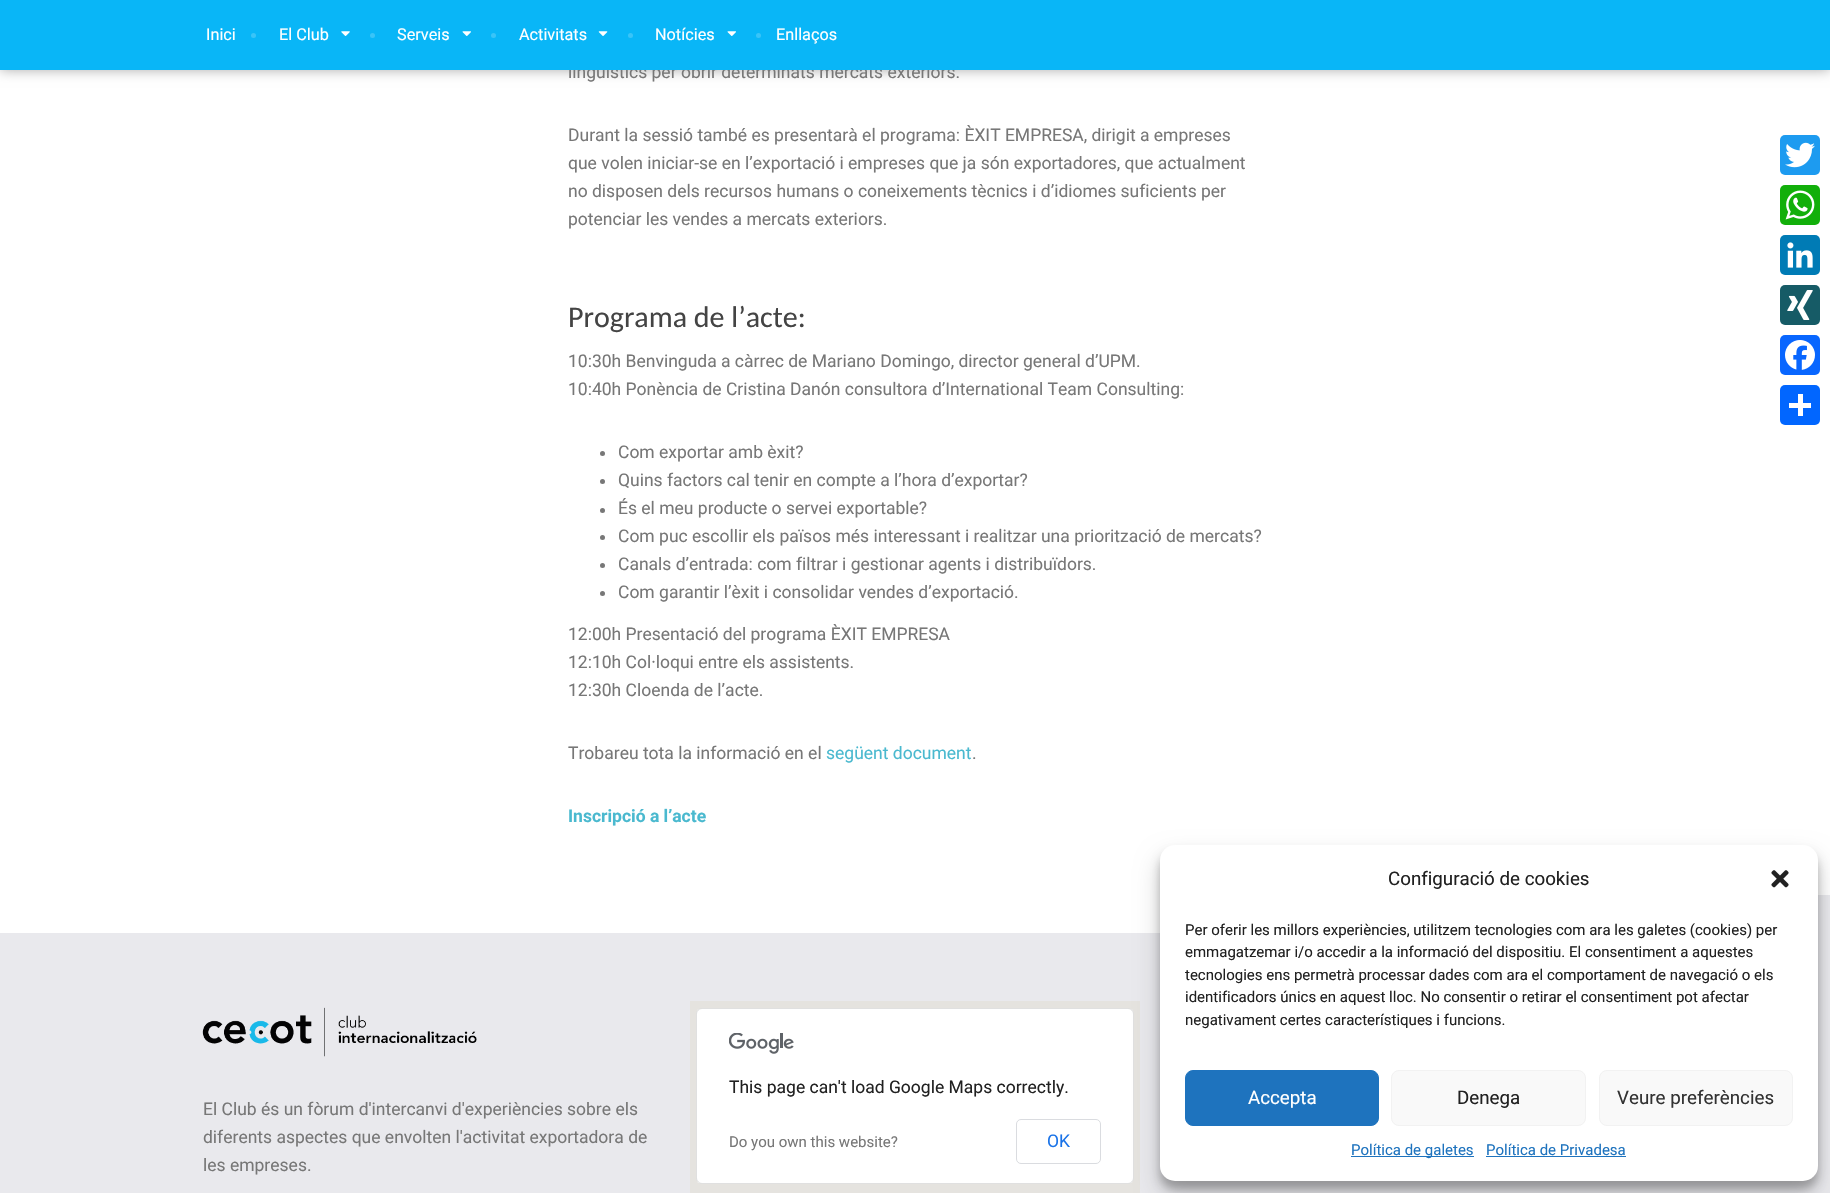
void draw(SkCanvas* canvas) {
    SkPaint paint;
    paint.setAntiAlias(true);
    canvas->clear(0xFFFFFFFF);
    paint.setColor(0x54000000);
    paint.setMaskFilter(SkMaskFilter::MakeBlur(kNormal_SkBlurStyle, 6));
    canvas->drawRect(SkRect::MakeXYWH(0, 0, 1830, 70), paint);
    paint.setMaskFilter(nullptr);
    SkFont font1(fontMgr->matchFamilyStyle("Roboto", SkFontStyle::Normal()), 17.5f);
    font1.setSubpixel(true);
    paint.setColor(0xFF777777);
    canvas->drawString("lingüístics per obrir determinats mercats exteriors.", 568, 78, font1, paint);
    paint.setColor(0xFF09B6F7);
    canvas->drawRect(SkRect::MakeXYWH(0, 0, 1830, 70), paint);
    SkFont font2(fontMgr->matchFamilyStyle("Roboto", SkFontStyle::Normal()), 16.25f);
    font2.setSubpixel(true);
    paint.setColor(0xFFFFFFFF);
    canvas->drawString("Inici", 206, 40, font2, paint);
    paint.setColor(0xFF39C4F8);
    canvas->drawCircle(253.5f, 35.5f, 2.5f, paint);
    paint.setColor(0xFFFFFFFF);
    canvas->drawString("El Club", 279, 40, font2, paint);
    paint.setColor(0xFF39C4F8);
    canvas->drawCircle(372.5f, 35.5f, 2.5f, paint);
    canvas->drawImageRect(SkImages::DeferredFromEncodedData(SkData::MakeFromFileName("img1.png")), SkRect::MakeXYWH(341, 31, 9, 5), SkSamplingOptions());
    paint.setColor(0xFFFFFFFF);
    canvas->drawString("Serveis", 397, 40, font2, paint);
    paint.setColor(0xFF39C4F8);
    canvas->drawCircle(493.5f, 35.5f, 2.5f, paint);
    canvas->drawImageRect(SkImages::DeferredFromEncodedData(SkData::MakeFromFileName("img2.png")), SkRect::MakeXYWH(462, 31, 9, 5), SkSamplingOptions());
    paint.setColor(0xFFFFFFFF);
    canvas->drawString("Activitats", 519, 40, font2, paint);
    paint.setColor(0xFF39C4F8);
    canvas->drawCircle(630.5f, 35.5f, 2.5f, paint);
    canvas->drawImageRect(SkImages::DeferredFromEncodedData(SkData::MakeFromFileName("img3.png")), SkRect::MakeXYWH(598, 31, 10, 5), SkSamplingOptions());
    paint.setColor(0xFFFFFFFF);
    canvas->drawString("Notícies", 655, 40, font2, paint);
    paint.setColor(0xFF39C4F8);
    canvas->drawCircle(758.5f, 35.5f, 2.5f, paint);
    canvas->drawImageRect(SkImages::DeferredFromEncodedData(SkData::MakeFromFileName("img2.png")), SkRect::MakeXYWH(727, 31, 9, 5), SkSamplingOptions());
    paint.setColor(0xFFFFFFFF);
    canvas->drawString("Enllaços", 776, 40, font2, paint);
    paint.setColor(0xFF777777);
    canvas->drawString("Durant la sessió també es presentarà el programa: ÈXIT EMPRESA, dirigit a empreses", 568, 141, font1, paint);
    canvas->drawString("que volen iniciar-se en l’exportació i empreses que ja són exportadores, que actualment", 568, 169, font1, paint);
    canvas->drawString("no disposen dels recursos humans o coneixements tècnics i d’idiomes suficients per", 568, 197, font1, paint);
    canvas->drawString("potenciar les vendes a mercats exteriors.", 568, 225, font1, paint);
    SkFont font3(fontMgr->matchFamilyStyle("Carlito", SkFontStyle::Normal()), 30);
    font3.setSubpixel(true);
    paint.setColor(0xFF444444);
    canvas->drawString("Programa de l’acte:", 568, 327, font3, paint);
    paint.setColor(0xFF777777);
    canvas->drawString("10:30h Benvinguda a càrrec de Mariano Domingo, director general d’UPM.", 568, 367, font1, paint);
    canvas->drawString("10:40h Ponència de Cristina Danón consultora d’International Team Consulting:", 568, 395, font1, paint);
    canvas->drawCircle(602.5f, 453.5f, 2.5f, paint);
    canvas->drawString("Com exportar amb èxit?", 618, 458, font1, paint);
    canvas->drawCircle(602.5f, 481.5f, 2.5f, paint);
    canvas->drawString("Quins factors cal tenir en compte a l’hora d’exportar?", 618, 486, font1, paint);
    canvas->drawCircle(602.5f, 510.5f, 2.5f, paint);
    canvas->drawString("És el meu producte o servei exportable?", 618, 514, font1, paint);
    canvas->drawCircle(602.5f, 537.5f, 2.5f, paint);
    canvas->drawString("Com puc escollir els països més interessant i realitzar una priorització de mercats?", 618, 542, font1, paint);
    canvas->drawCircle(602.5f, 565.5f, 2.5f, paint);
    canvas->drawString("Canals d’entrada: com filtrar i gestionar agents i distribuïdors.", 618, 570, font1, paint);
    canvas->drawCircle(602.5f, 593.5f, 2.5f, paint);
    canvas->drawString("Com garantir l’èxit i consolidar vendes d’exportació.", 618, 598, font1, paint);
    canvas->drawString("12:00h Presentació del programa ÈXIT EMPRESA", 568, 640, font1, paint);
    canvas->drawString("12:10h Col·loqui entre els assistents.", 568, 668, font1, paint);
    canvas->drawString("12:30h Cloenda de l’acte.", 568, 696, font1, paint);
    canvas->drawString("Trobareu tota la informació en el", 568, 759, font1, paint);
    paint.setColor(0xFF4AB9CF);
    canvas->drawString("següent document", 826, 759, font1, paint);
    paint.setColor(0xFF777777);
    canvas->drawString(".", 972, 759, font1, paint);
    SkFont font4(fontMgr->matchFamilyStyle("Roboto", SkFontStyle::Bold()), 17.5f);
    font4.setSubpixel(true);
    paint.setColor(0xFF4AB9CF);
    canvas->drawString("Inscripció a l’acte", 568, 822, font4, paint);
    paint.setColor(0xFFE9E9ED);
    canvas->drawRect(SkRect::MakeXYWH(1818, 895, 12, 38), paint);
    canvas->drawRect(SkRect::MakeXYWH(0, 933, 1830, 260), paint);
    canvas->drawImageRect(SkImages::DeferredFromEncodedData(SkData::MakeFromFileName("img4.png")), SkRect::MakeXYWH(202, 1007, 275, 50), SkSamplingOptions());
    paint.setColor(0xFF777777);
    canvas->drawString("El Club és un fòrum d'intercanvi d'experiències sobre els", 203, 1115, font1, paint);
    canvas->drawString("diferents aspectes que envolten l'activitat exportadora de", 203, 1143, font1, paint);
    canvas->drawString("les empreses.", 203, 1171, font1, paint);
    paint.setColor(0xFFE5E3DF);
    canvas->drawRect(SkRect::MakeXYWH(690, 1001, 450, 192), paint);
    paint.setColor(0xFFFFFFFF);
    canvas->drawRoundRect(SkRect::MakeXYWH(696, 1008, 438, 176), 6, 6, paint);
    paint.setStyle(SkPaint::kStroke_Style);
    paint.setStrokeWidth(1);
    paint.setColor(0x1F000000);
    canvas->drawRoundRect(SkRect::MakeXYWH(696.5f, 1008.5f, 437, 175), 5.5f, 5.5f, paint);
    canvas->drawImageRect(SkImages::DeferredFromEncodedData(SkData::MakeFromFileName("img5.png")), SkRect::MakeXYWH(729, 1033, 65, 21), SkSamplingOptions());
    paint.setStyle(SkPaint::kFill_Style);
    paint.setColor(0xFF212121);
    canvas->drawString("This page can't load Google Maps correctly.", 729, 1093, font1, paint);
    SkFont font5(fontMgr->matchFamilyStyle("Roboto", SkFontStyle::Normal()), 15);
    font5.setSubpixel(true);
    paint.setColor(0xFF777777);
    canvas->drawString("Do you own this website?", 729, 1147, font5, paint);
    paint.setStyle(SkPaint::kStroke_Style);
    paint.setColor(0xFFDADCE0);
    canvas->drawRoundRect(SkRect::MakeXYWH(1016.5f, 1119.5f, 84, 44), 4.5f, 4.5f, paint);
    paint.setStyle(SkPaint::kFill_Style);
    paint.setColor(0xFF1A73E8);
    canvas->drawString("OK", 1047, 1147, font1, paint);
    paint.setColor(0xFF1D9BF0);
    canvas->drawRoundRect(SkRect::MakeXYWH(1780, 135, 40, 40), 5, 5, paint);
    canvas->drawImageRect(SkImages::DeferredFromEncodedData(SkData::MakeFromFileName("img6.png")), SkRect::MakeXYWH(1785, 142, 30, 26), SkSamplingOptions());
    paint.setColor(0xFF12AF0A);
    canvas->drawRoundRect(SkRect::MakeXYWH(1780, 185, 40, 40), 5, 5, paint);
    canvas->drawImageRect(SkImages::DeferredFromEncodedData(SkData::MakeFromFileName("img7.png")), SkRect::MakeXYWH(1785, 190, 30, 30), SkSamplingOptions());
    paint.setColor(0xFF007BB5);
    canvas->drawRoundRect(SkRect::MakeXYWH(1780, 235, 40, 40), 5, 5, paint);
    canvas->drawImageRect(SkImages::DeferredFromEncodedData(SkData::MakeFromFileName("img8.png")), SkRect::MakeXYWH(1787, 242, 26, 26), SkSamplingOptions());
    paint.setColor(0xFF165B66);
    canvas->drawRoundRect(SkRect::MakeXYWH(1780, 285, 40, 40), 5, 5, paint);
    canvas->drawImageRect(SkImages::DeferredFromEncodedData(SkData::MakeFromFileName("img9.png")), SkRect::MakeXYWH(1787, 290, 26, 30), SkSamplingOptions());
    paint.setColor(0xFF0866FF);
    canvas->drawRoundRect(SkRect::MakeXYWH(1780, 335, 40, 40), 5, 5, paint);
    canvas->drawImageRect(SkImages::DeferredFromEncodedData(SkData::MakeFromFileName("img10.png")), SkRect::MakeXYWH(1785, 340, 30, 30), SkSamplingOptions());
    paint.setColor(0xFF0166FF);
    canvas->drawRoundRect(SkRect::MakeXYWH(1780, 385, 40, 40), 5, 5, paint);
    paint.setColor(0xFFFFFFFF);
    canvas->drawRect(SkRect::MakeXYWH(1798, 394, 5, 22), paint);
    canvas->drawRect(SkRect::MakeXYWH(1789, 403, 22, 5), paint);
    paint.setColor(0x3B000000);
    paint.setMaskFilter(SkMaskFilter::MakeBlur(kNormal_SkBlurStyle, 4));
    canvas->drawRoundRect(SkRect::MakeXYWH(1160, 853, 658, 336), 15, 15, paint);
    paint.setMaskFilter(nullptr);
    paint.setColor(0x30000000);
    paint.setMaskFilter(SkMaskFilter::MakeBlur(kNormal_SkBlurStyle, 12.5f));
    canvas->drawRoundRect(SkRect::MakeXYWH(1160, 858, 658, 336), 15, 15, paint);
    paint.setMaskFilter(nullptr);
    paint.setColor(0xFFFFFFFF);
    canvas->drawRoundRect(SkRect::MakeXYWH(1160, 845, 658, 336), 15, 15, paint);
    SkFont font6(fontMgr->matchFamilyStyle("Roboto", SkFontStyle::Normal()), 18.75f);
    font6.setSubpixel(true);
    paint.setColor(0xFF212121);
    canvas->drawString("Configuració de cookies", 1388, 885, font6, paint);
    canvas->drawImageRect(SkImages::DeferredFromEncodedData(SkData::MakeFromFileName("img11.png")), SkRect::MakeXYWH(1771, 870, 18, 18), SkSamplingOptions());
    canvas->drawString("Per oferir les millors experiències, utilitzem tecnologies com ara les galetes (cookies) per", 1185, 935, font5, paint);
    canvas->drawString("emmagatzemar i/o accedir a la informació del dispositiu. El consentiment a aquestes", 1185, 957, font5, paint);
    canvas->drawString("tecnologies ens permetrà processar dades com ara el comportament de navegació o els", 1185, 980, font5, paint);
    canvas->drawString("identificadors únics en aquest lloc. No consentir o retirar el consentiment pot afectar", 1185, 1002, font5, paint);
    canvas->drawString("negativament certes característiques i funcions.", 1185, 1025, font5, paint);
    paint.setColor(0xFF1E73BE);
    canvas->drawRoundRect(SkRect::MakeXYWH(1185.5f, 1070.5f, 193, 55), 7.5f, 7.5f, paint);
    paint.setStyle(SkPaint::kStroke_Style);
    canvas->drawRoundRect(SkRect::MakeXYWH(1185.5f, 1070.5f, 193, 55), 7.5f, 7.5f, paint);
    paint.setStyle(SkPaint::kFill_Style);
    paint.setColor(0xFFFFFFFF);
    canvas->drawString("Accepta", 1248, 1104, font6, paint);
    paint.setColor(0xFFF9F9F9);
    canvas->drawRoundRect(SkRect::MakeXYWH(1391.5f, 1070.5f, 194, 55), 7.5f, 7.5f, paint);
    paint.setStyle(SkPaint::kStroke_Style);
    paint.setColor(0xFFF2F2F2);
    canvas->drawRoundRect(SkRect::MakeXYWH(1391.5f, 1070.5f, 194, 55), 7.5f, 7.5f, paint);
    paint.setStyle(SkPaint::kFill_Style);
    paint.setColor(0xFF212121);
    canvas->drawString("Denega", 1457, 1104, font6, paint);
    paint.setColor(0xFFF9F9F9);
    canvas->drawRoundRect(SkRect::MakeXYWH(1599.5f, 1070.5f, 193, 55), 7.5f, 7.5f, paint);
    paint.setStyle(SkPaint::kStroke_Style);
    paint.setColor(0xFFF2F2F2);
    canvas->drawRoundRect(SkRect::MakeXYWH(1599.5f, 1070.5f, 193, 55), 7.5f, 7.5f, paint);
    paint.setStyle(SkPaint::kFill_Style);
    paint.setColor(0xFF333333);
    canvas->drawString("Veure preferències", 1617, 1104, font6, paint);
    paint.setColor(0xFF1E73BE);
    canvas->drawRect(SkRect::MakeXYWH(1351, 1156, 123, 1), paint);
    canvas->drawString("Política de galetes", 1351, 1155, font5, paint);
    canvas->drawString("Política de Privadesa", 1486, 1155, font5, paint);
    canvas->drawRect(SkRect::MakeXYWH(1486, 1156, 140, 1), paint);
}
